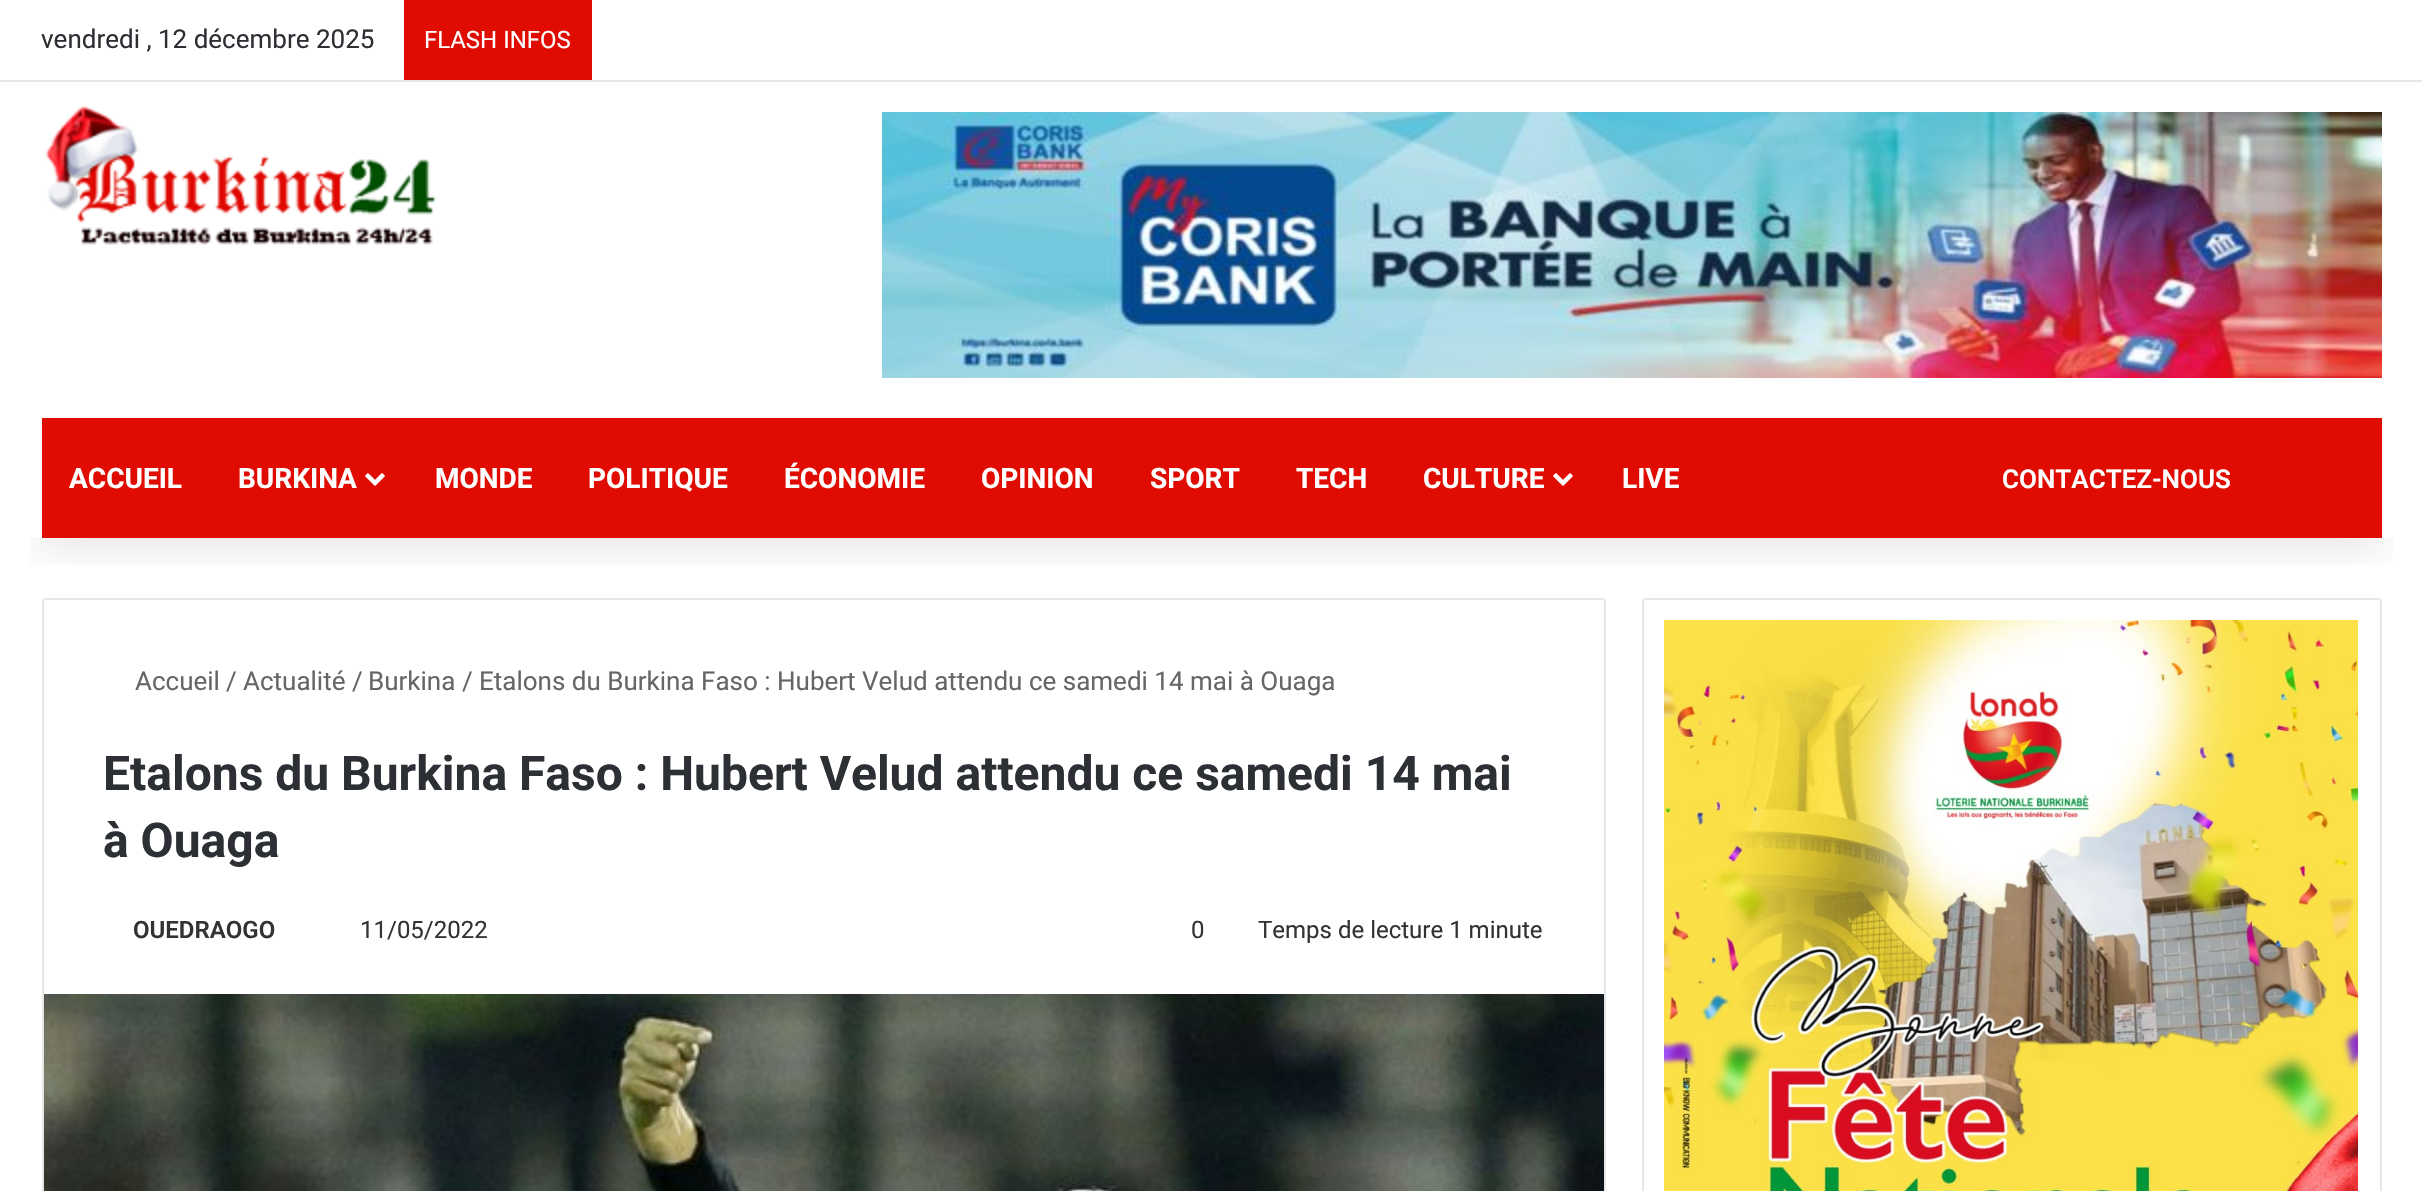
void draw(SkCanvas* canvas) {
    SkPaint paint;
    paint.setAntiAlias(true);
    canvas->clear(0xFFFFFFFF);
    paint.setStyle(SkPaint::kStroke_Style);
    paint.setStrokeWidth(2);
    paint.setColor(0xFFE6E6E6);
    canvas->drawRoundRect(SkRect::MakeXYWH(43, 599, 1562, 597), 3, 3, paint);
    canvas->drawRoundRect(SkRect::MakeXYWH(1643, 599, 738, 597), 3, 3, paint);
    canvas->save();
    canvas->clipRect(SkRect::MakeXYWH(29, 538, 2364, 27));
    paint.setStyle(SkPaint::kFill_Style);
    paint.setColor(0x1A000000);
    paint.setMaskFilter(SkMaskFilter::MakeBlur(kNormal_SkBlurStyle, 20));
    canvas->drawRect(SkRect::MakeXYWH(40, 90, 2342, 458), paint);
    paint.setMaskFilter(nullptr);
    canvas->restore();
    paint.setColor(0xFFE6E6E6);
    canvas->drawRect(SkRect::MakeXYWH(0, 80, 2422, 2), paint);
    SkFont font1(fontMgr->matchFamilyStyle("Roboto", SkFontStyle::Normal()), 26);
    font1.setSubpixel(true);
    paint.setColor(0xFF2C2F34);
    canvas->drawString("vendredi , 12 décembre 2025", 41, 48, font1, paint);
    paint.setColor(0xFFE00C01);
    canvas->drawRect(SkRect::MakeXYWH(404, 0, 188, 80), paint);
    SkFont font2(fontMgr->matchFamilyStyle("Roboto", SkFontStyle::Normal()), 24);
    font2.setSubpixel(true);
    paint.setColor(0xFFFFFFFF);
    canvas->drawString("FLASH INFOS", 424, 48, font2, paint);
    canvas->drawImageRect(SkImages::DeferredFromEncodedData(SkData::MakeFromFileName("img1.png")), SkRect::MakeXYWH(45, 106, 392, 139), SkSamplingOptions());
    canvas->drawImageRect(SkImages::DeferredFromEncodedData(SkData::MakeFromFileName("img2.png")), SkRect::MakeXYWH(882, 112, 1500, 266), SkSamplingOptions());
    paint.setColor(0xFFE00C01);
    canvas->drawRect(SkRect::MakeXYWH(42, 418, 2340, 120), paint);
    SkFont font3(fontMgr->matchFamilyStyle("Roboto", SkFontStyle::Bold()), 28);
    font3.setSubpixel(true);
    paint.setColor(0xFFFFFFFF);
    canvas->drawString("ACCUEIL", 69, 488, font3, paint);
    canvas->drawString("BURKINA", 238, 488, font3, paint);
    canvas->drawImageRect(SkImages::DeferredFromEncodedData(SkData::MakeFromFileName("img3.png")), SkRect::MakeXYWH(365, 473, 20, 13), SkSamplingOptions());
    canvas->drawString("MONDE", 435, 488, font3, paint);
    canvas->drawString("POLITIQUE", 588, 488, font3, paint);
    canvas->drawString("ÉCONOMIE", 784, 488, font3, paint);
    canvas->drawString("OPINION", 981, 488, font3, paint);
    canvas->drawString("SPORT", 1150, 488, font3, paint);
    canvas->drawString("TECH", 1296, 488, font3, paint);
    canvas->drawString("CULTURE", 1423, 488, font3, paint);
    canvas->drawImageRect(SkImages::DeferredFromEncodedData(SkData::MakeFromFileName("img3.png")), SkRect::MakeXYWH(1553, 473, 20, 13), SkSamplingOptions());
    canvas->drawString("LIVE", 1622, 488, font3, paint);
    SkFont font4(fontMgr->matchFamilyStyle("Roboto", SkFontStyle(600, SkFontStyle::kNormal_Width, SkFontStyle::kUpright_Slant)), 26);
    font4.setSubpixel(true);
    canvas->drawString("CONTACTEZ-NOUS", 2002, 488, font4, paint);
    paint.setColor(0xFF666666);
    canvas->drawString("Accueil", 135, 690, font1, paint);
    canvas->drawString("/", 226, 690, font1, paint);
    canvas->drawString("Actualité", 243, 690, font1, paint);
    canvas->drawString("/", 352, 690, font1, paint);
    canvas->drawString("Burkina", 368, 690, font1, paint);
    canvas->drawString("/", 462, 690, font1, paint);
    canvas->drawString("Etalons du Burkina Faso : Hubert Velud attendu ce samedi 14 mai à Ouaga", 479, 690, font1, paint);
    SkFont font5(fontMgr->matchFamilyStyle("Roboto", SkFontStyle::Bold()), 48);
    font5.setSubpixel(true);
    paint.setColor(0xFF2C2F34);
    canvas->drawString("Etalons du Burkina Faso : Hubert Velud attendu ce samedi 14 mai", 103, 790, font5, paint);
    canvas->drawString("à Ouaga", 103, 857, font5, paint);
    SkFont font6(fontMgr->matchFamilyStyle("Roboto", SkFontStyle(600, SkFontStyle::kNormal_Width, SkFontStyle::kUpright_Slant)), 24);
    font6.setSubpixel(true);
    paint.setColor(0xFF333333);
    canvas->drawString("OUEDRAOGO", 133, 938, font6, paint);
    canvas->drawString("11/05/2022", 360, 938, font2, paint);
    canvas->drawString("0", 1191, 938, font2, paint);
    canvas->drawString("Temps de lecture 1 minute", 1258, 938, font2, paint);
    canvas->drawImageRect(SkImages::DeferredFromEncodedData(SkData::MakeFromFileName("img4.png")), SkRect::MakeXYWH(44, 994, 1560, 197), SkSamplingOptions());
    canvas->drawImageRect(SkImages::DeferredFromEncodedData(SkData::MakeFromFileName("img5.png")), SkRect::MakeXYWH(1664, 620, 694, 571), SkSamplingOptions());
}
